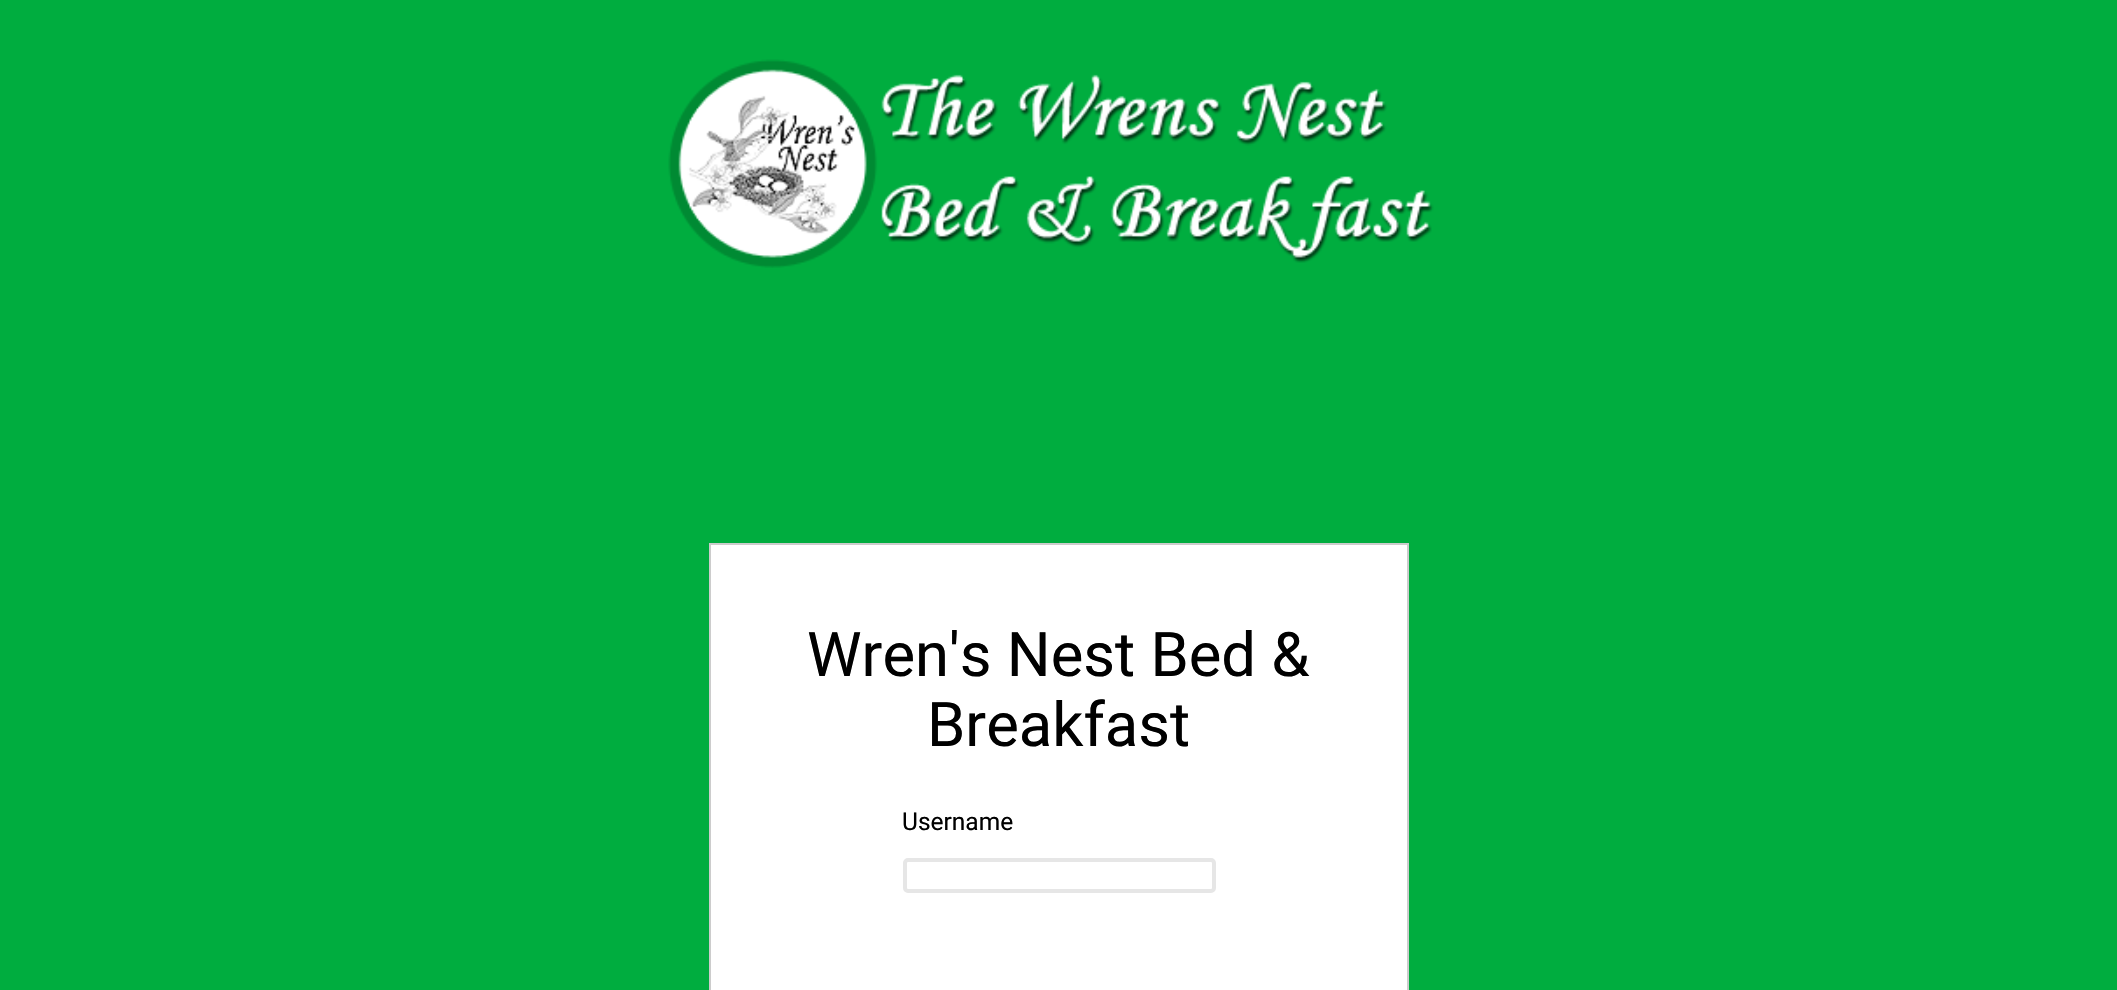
void draw(SkCanvas* canvas) {
    SkPaint paint;
    paint.setAntiAlias(true);
    canvas->clear(0xFF00AD3F);
    canvas->drawImageRect(SkImages::DeferredFromEncodedData(SkData::MakeFromFileName("img1.png")), SkRect::MakeXYWH(668, 59, 766, 209), SkSamplingOptions());
    paint.setColor(0xFFFFFFFF);
    canvas->drawRect(SkRect::MakeXYWH(710, 544, 698, 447), paint);
    paint.setStyle(SkPaint::kStroke_Style);
    paint.setStrokeWidth(2);
    paint.setColor(0xFFCCCCCC);
    canvas->drawRect(SkRect::MakeXYWH(710, 544, 698, 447), paint);
    SkFont font1(fontMgr->matchFamilyStyle("Heebo", SkFontStyle::Normal()), 61.5f);
    font1.setSubpixel(true);
    paint.setStyle(SkPaint::kFill_Style);
    paint.setColor(0xFF000000);
    canvas->drawString("Wren's Nest Bed &", 807, 676, font1, paint);
    canvas->drawString("Breakfast", 927, 746, font1, paint);
    SkFont font2(fontMgr->matchFamilyStyle("Heebo", SkFontStyle::Normal()), 24.5f);
    font2.setSubpixel(true);
    canvas->drawString("Username", 902, 830, font2, paint);
    paint.setStyle(SkPaint::kStroke_Style);
    paint.setStrokeWidth(4);
    paint.setColor(0xFFE6E6E6);
    canvas->drawRoundRect(SkRect::MakeXYWH(905, 860, 309, 31), 3, 3, paint);
}
